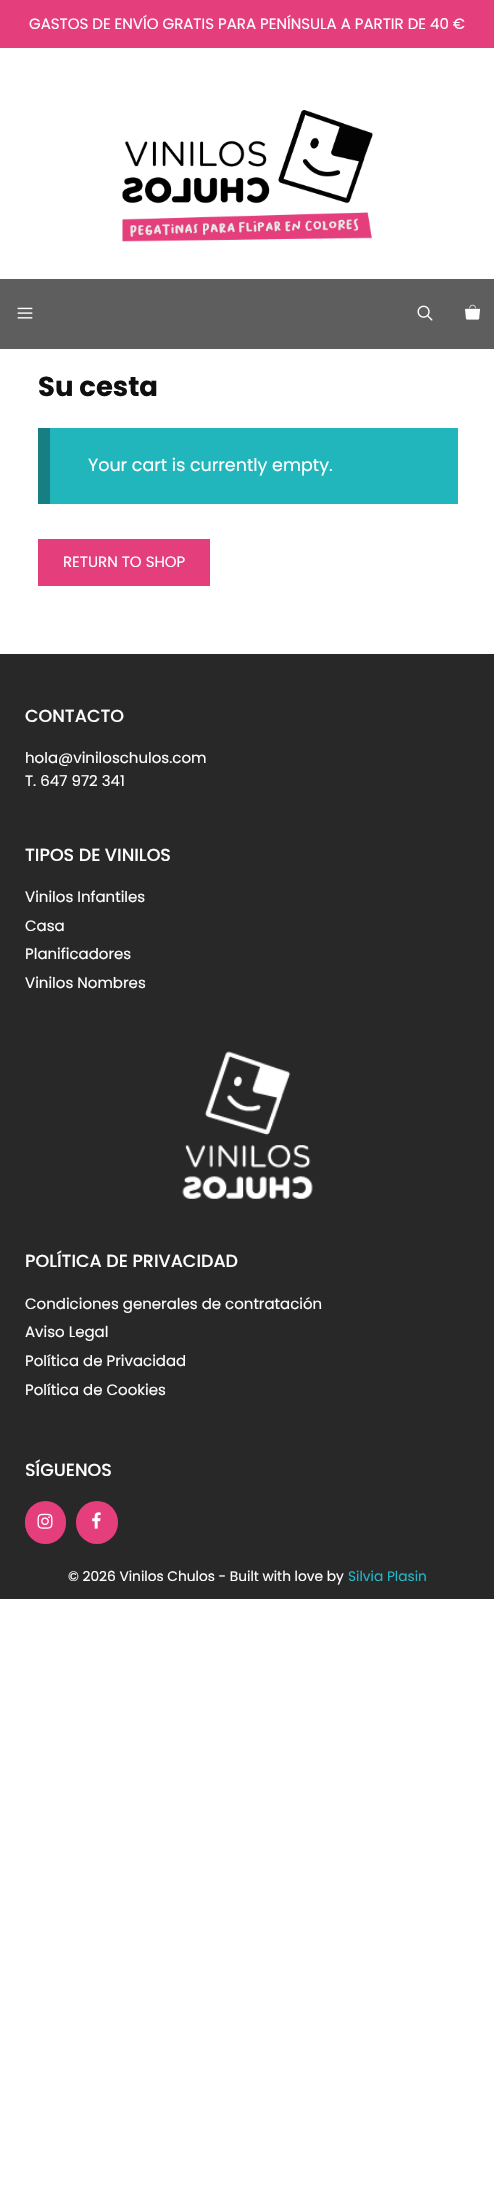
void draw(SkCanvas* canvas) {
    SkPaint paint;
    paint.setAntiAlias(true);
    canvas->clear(0xFFFFFFFF);
    paint.setColor(0xFFE43E7C);
    canvas->drawRect(SkRect::MakeXYWH(0, 0, 494, 48), paint);
    SkFont font1(fontMgr->matchFamilyStyle("Poppins", SkFontStyle::Normal()), 15);
    font1.setSubpixel(true);
    paint.setColor(0xFFFFFFFF);
    canvas->drawString("GASTOS DE ENVÍO GRATIS PARA PENÍNSULA A PARTIR DE 40 €", 29, 29, font1, paint);
    canvas->drawImageRect(SkImages::DeferredFromEncodedData(SkData::MakeFromFileName("img1.png")), SkRect::MakeXYWH(122, 110, 251, 132), SkSamplingOptions());
    paint.setColor(0xFF5E5E5E);
    canvas->drawRect(SkRect::MakeXYWH(0, 279, 494, 70), paint);
    canvas->drawImageRect(SkImages::DeferredFromEncodedData(SkData::MakeFromFileName("img2.png")), SkRect::MakeXYWH(17, 307, 16, 12), SkSamplingOptions());
    canvas->drawImageRect(SkImages::DeferredFromEncodedData(SkData::MakeFromFileName("img3.png")), SkRect::MakeXYWH(417, 305, 16, 16), SkSamplingOptions());
    canvas->drawImageRect(SkImages::DeferredFromEncodedData(SkData::MakeFromFileName("img4.png")), SkRect::MakeXYWH(465, 304, 16, 16), SkSamplingOptions());
    SkFont font2(fontMgr->matchFamilyStyle("Poppins", SkFontStyle::Bold()), 27.5f);
    font2.setSubpixel(true);
    paint.setColor(0xFF0F0F0F);
    canvas->drawString("Su cesta", 38, 396, font2, paint);
    paint.setColor(0xFF21B5BC);
    canvas->drawRect(SkRect::MakeXYWH(50, 428, 408, 76), paint);
    paint.setColor(0xFF177F84);
    canvas->drawRect(SkRect::MakeXYWH(38, 428, 12, 76), paint);
    SkFont font3(fontMgr->matchFamilyStyle("Poppins", SkFontStyle::Normal()), 17.5f);
    font3.setSubpixel(true);
    paint.setColor(0xFFFFFFFF);
    canvas->drawString("Your cart is currently empty.", 88, 471, font3, paint);
    paint.setColor(0xFFE43E7C);
    canvas->drawRect(SkRect::MakeXYWH(38, 539, 172, 47), paint);
    paint.setColor(0xFFFFFFFF);
    canvas->drawString("RETURN TO SHOP", 63, 567, font1, paint);
    paint.setColor(0xFF282828);
    canvas->drawRect(SkRect::MakeXYWH(0, 654, 494, 945), paint);
    SkFont font4(fontMgr->matchFamilyStyle("Poppins", SkFontStyle(500, SkFontStyle::kNormal_Width, SkFontStyle::kUpright_Slant)), 17.5f);
    font4.setSubpixel(true);
    paint.setColor(0xFFFFFFFF);
    canvas->drawString("CONTACTO", 25, 722, font4, paint);
    canvas->drawString("hola@viniloschulos.com", 25, 763, font1, paint);
    canvas->drawString("T. 647 972 341", 25, 786, font1, paint);
    canvas->drawString("TIPOS DE VINILOS", 25, 861, font4, paint);
    canvas->drawString("Vinilos Infantiles", 25, 902, font1, paint);
    canvas->drawString("Casa", 25, 931, font1, paint);
    canvas->drawString("Planificadores", 25, 959, font1, paint);
    canvas->drawString("Vinilos Nombres", 25, 988, font1, paint);
    canvas->drawImageRect(SkImages::DeferredFromEncodedData(SkData::MakeFromFileName("img5.png")), SkRect::MakeXYWH(182, 1051, 131, 148), SkSamplingOptions());
    canvas->drawString("POLÍTICA DE PRIVACIDAD", 25, 1267, font4, paint);
    canvas->drawString("Condiciones generales de contratación", 25, 1309, font1, paint);
    canvas->drawString("Aviso Legal", 25, 1337, font1, paint);
    canvas->drawString("Política de Privacidad", 25, 1366, font1, paint);
    canvas->drawString("Política de Cookies", 25, 1395, font1, paint);
    canvas->drawString("SÍGUENOS", 25, 1476, font4, paint);
    paint.setColor(0xFFE43E7C);
    canvas->drawRoundRect(SkRect::MakeXYWH(25, 1501, 41, 43), 20.5f, 20.5f, paint);
    canvas->drawImageRect(SkImages::DeferredFromEncodedData(SkData::MakeFromFileName("img6.png")), SkRect::MakeXYWH(37, 1513, 16, 16), SkSamplingOptions());
    canvas->drawRoundRect(SkRect::MakeXYWH(76, 1501, 42, 43), 21, 21, paint);
    canvas->drawImageRect(SkImages::DeferredFromEncodedData(SkData::MakeFromFileName("img7.png")), SkRect::MakeXYWH(92, 1512, 9, 17), SkSamplingOptions());
    SkFont font5(fontMgr->matchFamilyStyle("Poppins", SkFontStyle::Normal()), 13.75f);
    font5.setSubpixel(true);
    paint.setColor(0xFFFFFFFF);
    canvas->drawString("© 2026 Vinilos Chulos - Built with love by", 68, 1581, font5, paint);
    paint.setColor(0xFF21B7C8);
    canvas->drawString("Silvia Plasin", 348, 1581, font5, paint);
}
